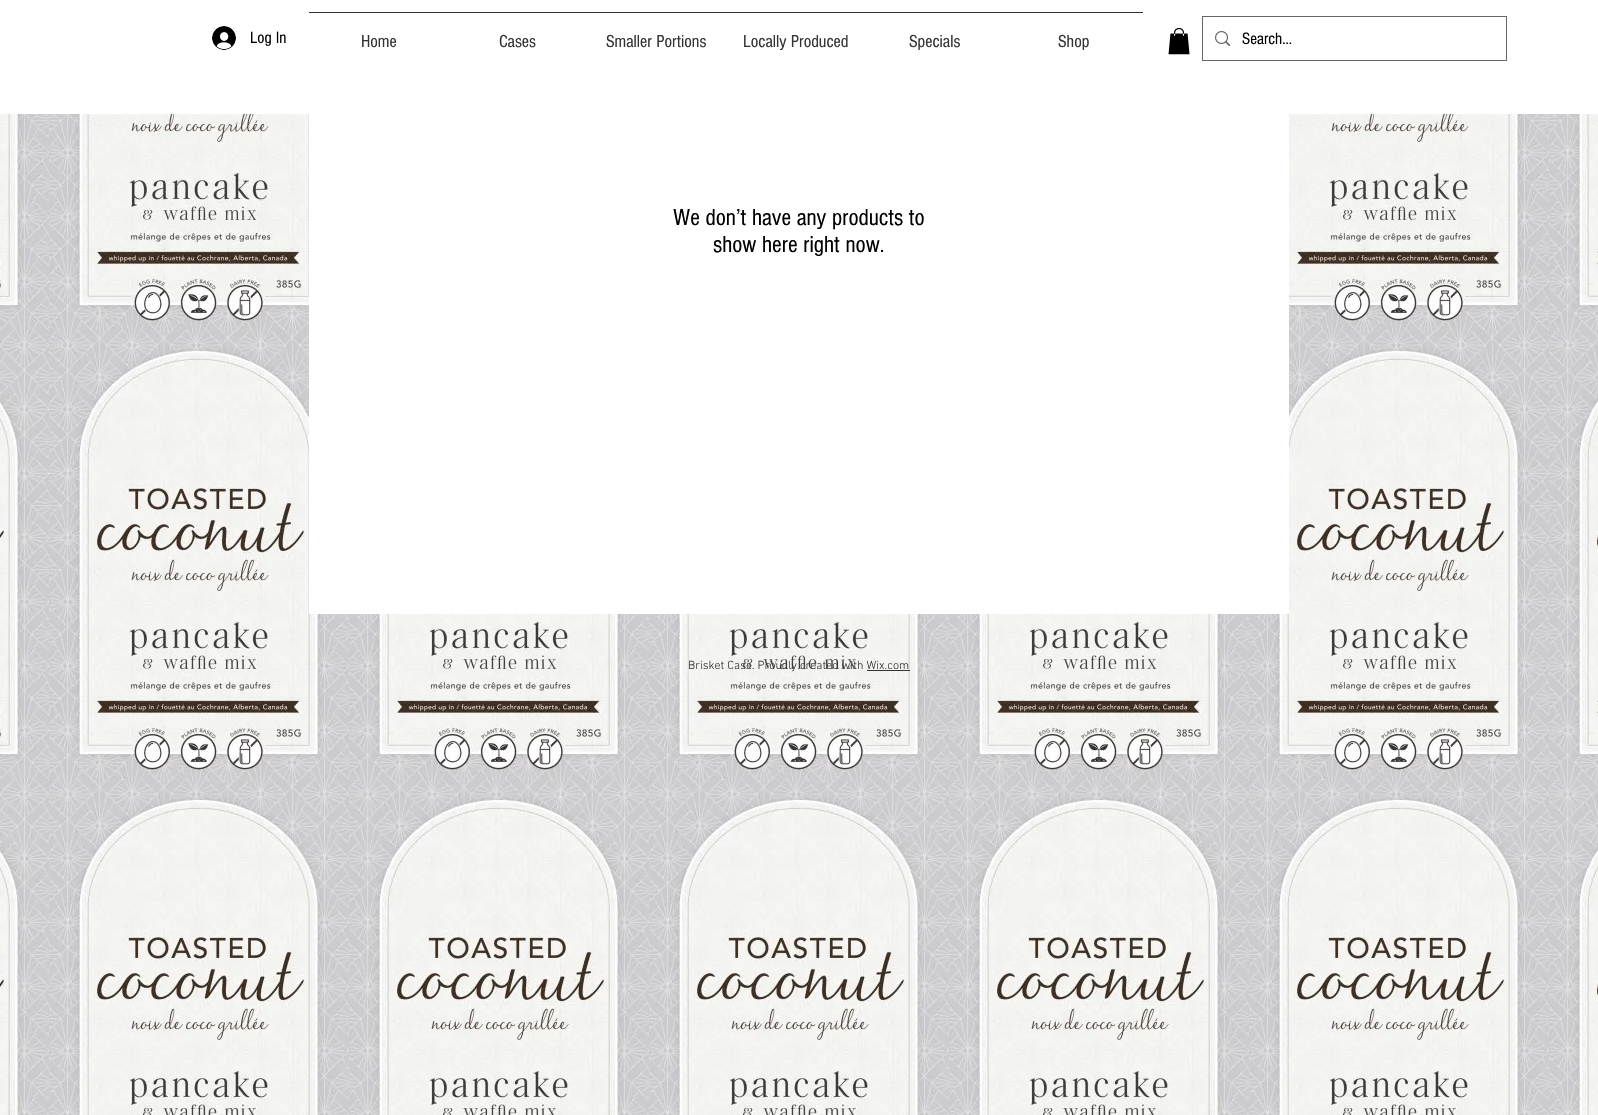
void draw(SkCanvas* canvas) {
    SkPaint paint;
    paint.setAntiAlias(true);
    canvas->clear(0xFFFFFFFF);
    canvas->drawImageRect(SkImages::DeferredFromEncodedData(SkData::MakeFromFileName("img1.png")), SkRect::MakeXYWH(212, 26, 24, 24), SkSamplingOptions());
    SkFont font1(fontMgr->matchFamilyStyle("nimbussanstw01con", SkFontStyle::Normal()), 17);
    font1.setSubpixel(true);
    paint.setColor(0xFF000000);
    canvas->drawString("Log In", 250, 43, font1, paint);
    paint.setColor(0xFF333333);
    canvas->drawRect(SkRect::MakeXYWH(309, 12, 834, 1), paint);
    SkFont font2(fontMgr->matchFamilyStyle("nimbussanstw01con", SkFontStyle::Normal()), 18);
    font2.setSubpixel(true);
    canvas->drawString("Home", 361, 47, font2, paint);
    canvas->drawString("Cases", 499, 47, font2, paint);
    canvas->drawString("Smaller Portions", 606, 47, font2, paint);
    canvas->drawString("Locally Produced", 743, 47, font2, paint);
    canvas->drawString("Specials", 909, 47, font2, paint);
    canvas->drawString("Shop", 1058, 47, font2, paint);
    canvas->drawImageRect(SkImages::DeferredFromEncodedData(SkData::MakeFromFileName("img2.png")), SkRect::MakeXYWH(1168, 28, 22, 27), SkSamplingOptions());
    paint.setStyle(SkPaint::kStroke_Style);
    paint.setStrokeWidth(1);
    paint.setColor(0xFF666666);
    canvas->drawRect(SkRect::MakeXYWH(1202.5f, 16.5f, 304, 44), paint);
    canvas->drawImageRect(SkImages::DeferredFromEncodedData(SkData::MakeFromFileName("img3.png")), SkRect::MakeXYWH(1215, 31, 15, 15), SkSamplingOptions());
    paint.setStyle(SkPaint::kFill_Style);
    paint.setColor(0xFF000000);
    canvas->drawString("Search...", 1242, 44, font1, paint);
    canvas->drawImageRect(SkImages::DeferredFromEncodedData(SkData::MakeFromFileName("img4.png")), SkRect::MakeXYWH(0, 114, 1598, 1001), SkSamplingOptions());
    paint.setColor(0xFFFFFFFF);
    canvas->drawRect(SkRect::MakeXYWH(309, 114, 980, 500), paint);
    SkFont font3(fontMgr->matchFamilyStyle("nimbussanstw01con", SkFontStyle::Normal()), 24);
    font3.setSubpixel(true);
    paint.setColor(0xFF000000);
    canvas->drawString("We don’t have any products to", 673, 225, font3, paint);
    canvas->drawString("show here right now.", 713, 252, font3, paint);
    SkFont font4(fontMgr->matchFamilyStyle("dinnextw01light", SkFontStyle(300, SkFontStyle::kNormal_Width, SkFontStyle::kUpright_Slant)), 12);
    font4.setSubpixel(true);
    paint.setColor(0xFF333333);
    canvas->drawString("Brisket Case. Proudly created with Wix.com", 688, 669, font4, paint);
    canvas->drawRect(SkRect::MakeXYWH(867, 670, 43, 1), paint);
}
